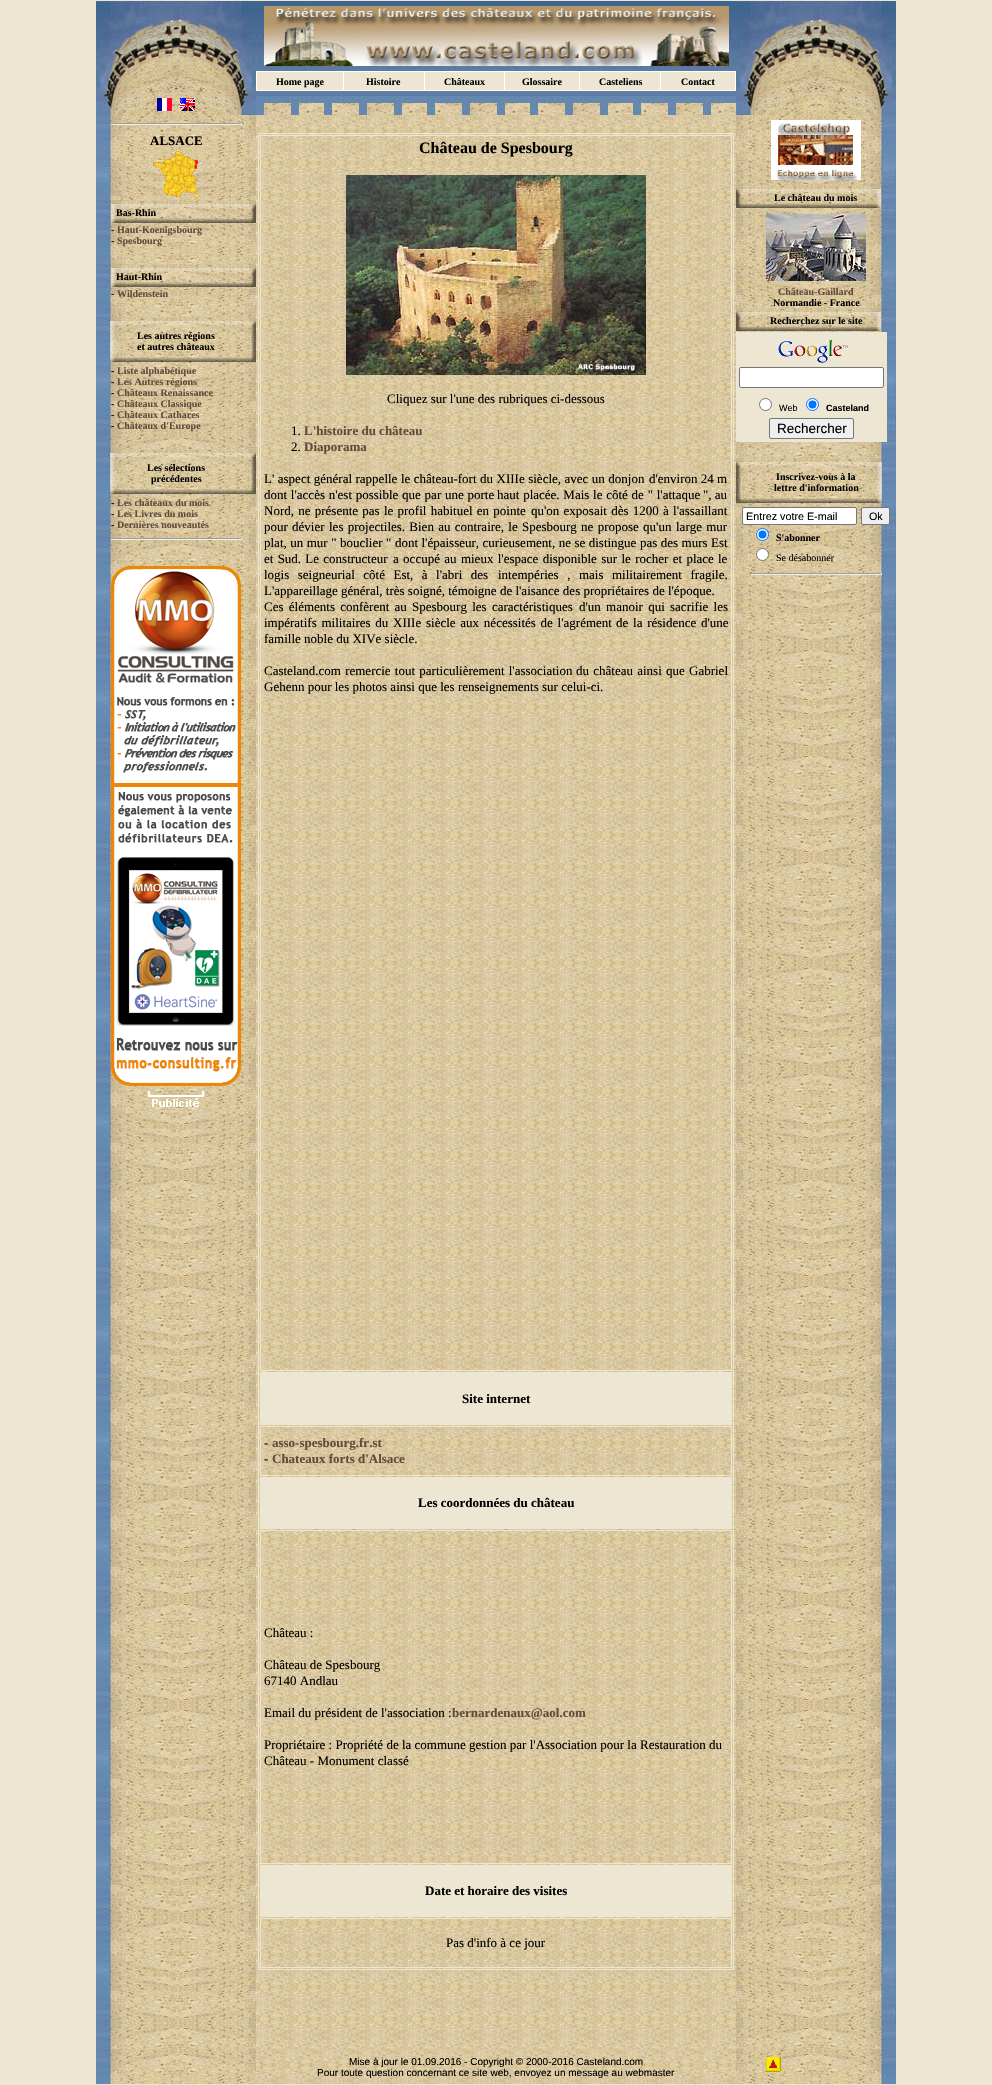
void draw(SkCanvas* canvas) {
    SkPaint paint;
    paint.setAntiAlias(true);
    auto spacedText = [&](const char* s, float x, float y, const SkFont& font, const SkPaint& ink, float letter, float word) {
        std::vector<SkGlyphID> glyphs(font.countText(s, strlen(s), SkTextEncoding::kUTF8));
        std::vector<float> xs(glyphs.size());
        font.textToGlyphs(s, strlen(s), SkTextEncoding::kUTF8, glyphs);
        font.getXPos(glyphs, xs, x);
        float extra = 0;
        for (size_t i = 0; i < glyphs.size(); i++) {
            xs[i] += extra;
            extra += letter + word * (glyphs[i] == font.unicharToGlyph(' '));
        }
        canvas->drawTextBlob(SkTextBlob::MakeFromPosHGlyphs(glyphs, xs, y, font), 0, 0, ink);
    };
    canvas->clear(0xFFEDE6D3);
    canvas->drawImageRect(SkImages::DeferredFromEncodedData(SkData::MakeFromFileName("img1.png")), SkRect::MakeXYWH(256, 2049, 480, 35), SkSamplingOptions());
    canvas->drawImageRect(SkImages::DeferredFromEncodedData(SkData::MakeFromFileName("img2.png")), SkRect::MakeXYWH(96, 1, 160, 114), SkSamplingOptions());
    canvas->drawImageRect(SkImages::DeferredFromEncodedData(SkData::MakeFromFileName("img3.png")), SkRect::MakeXYWH(157, 98, 15, 13), SkSamplingOptions());
    canvas->drawImageRect(SkImages::DeferredFromEncodedData(SkData::MakeFromFileName("img4.png")), SkRect::MakeXYWH(180, 98, 15, 13), SkSamplingOptions());
    canvas->drawImageRect(SkImages::DeferredFromEncodedData(SkData::MakeFromFileName("img5.png")), SkRect::MakeXYWH(256, 1, 480, 95), SkSamplingOptions());
    canvas->drawImageRect(SkImages::DeferredFromEncodedData(SkData::MakeFromFileName("img6.png")), SkRect::MakeXYWH(264, 6, 465, 60), SkSamplingOptions());
    paint.setColor(0xFFFFFFFF);
    canvas->drawRect(SkRect::MakeXYWH(256, 71, 480, 20), paint);
    paint.setColor(0xFFEDE6D3);
    canvas->drawRect(SkRect::MakeXYWH(257, 72, 86, 18), paint);
    SkFont font1(fontMgr->matchFamilyStyle("Liberation Serif", SkFontStyle::Bold()), 10);
    font1.setSubpixel(true);
    paint.setColor(0xFF000000);
    canvas->drawString("Home page", 276, 85, font1, paint);
    paint.setColor(0xFFEDE6D3);
    canvas->drawRect(SkRect::MakeXYWH(344, 72, 80, 18), paint);
    paint.setColor(0xFF000000);
    canvas->drawString("Histoire", 366, 85, font1, paint);
    paint.setColor(0xFFEDE6D3);
    canvas->drawRect(SkRect::MakeXYWH(425, 72, 79, 18), paint);
    paint.setColor(0xFF000000);
    canvas->drawString("Châteaux", 444, 85, font1, paint);
    paint.setColor(0xFFEDE6D3);
    canvas->drawRect(SkRect::MakeXYWH(505, 72, 74, 18), paint);
    paint.setColor(0xFF000000);
    canvas->drawString("Glossaire", 522, 85, font1, paint);
    paint.setColor(0xFFEDE6D3);
    canvas->drawRect(SkRect::MakeXYWH(580, 72, 80, 18), paint);
    paint.setColor(0xFF000000);
    canvas->drawString("Casteliens", 599, 85, font1, paint);
    paint.setColor(0xFFEDE6D3);
    canvas->drawRect(SkRect::MakeXYWH(661, 72, 74, 18), paint);
    paint.setColor(0xFF000000);
    canvas->drawString("Contact", 681, 85, font1, paint);
    canvas->drawImageRect(SkImages::DeferredFromEncodedData(SkData::MakeFromFileName("img2.png")), SkRect::MakeXYWH(736, 1, 160, 114), SkSamplingOptions());
    canvas->drawImageRect(SkImages::DeferredFromEncodedData(SkData::MakeFromFileName("img7.png")), SkRect::MakeXYWH(256, 96, 480, 19), SkSamplingOptions());
    canvas->drawImageRect(SkImages::DeferredFromEncodedData(SkData::MakeFromFileName("img8.png")), SkRect::MakeXYWH(96, 115, 160, 1934), SkSamplingOptions());
    paint.setColor(0xFF9F9F9F);
    canvas->drawRect(SkRect::MakeXYWH(110, 123, 132, 1), paint);
    paint.setColor(0xFFEEEEEE);
    canvas->drawRect(SkRect::MakeXYWH(241, 123, 1, 2), paint);
    canvas->drawRect(SkRect::MakeXYWH(110, 124, 132, 1), paint);
    paint.setColor(0xFF9F9F9F);
    canvas->drawRect(SkRect::MakeXYWH(110, 123, 1, 2), paint);
    SkFont font2(fontMgr->matchFamilyStyle("Liberation Serif", SkFontStyle::Bold()), 13);
    font2.setSubpixel(true);
    paint.setColor(0xFF000000);
    canvas->drawString("ALSACE", 150, 145, font2, paint);
    canvas->drawImageRect(SkImages::DeferredFromEncodedData(SkData::MakeFromFileName("img9.png")), SkRect::MakeXYWH(96, 149, 160, 51), SkSamplingOptions());
    canvas->drawImageRect(SkImages::DeferredFromEncodedData(SkData::MakeFromFileName("img10.png")), SkRect::MakeXYWH(96, 200, 160, 24), SkSamplingOptions());
    canvas->drawString("Bas-Rhin", 116, 216, font1, paint);
    SkFont font3(fontMgr->matchFamilyStyle("Liberation Serif", SkFontStyle::Normal()), 10);
    font3.setSubpixel(true);
    canvas->drawString("-", 111, 233, font3, paint);
    paint.setColor(0xFF624A3C);
    canvas->drawString("Haut-Koenigsbourg", 117, 233, font1, paint);
    paint.setColor(0xFF000000);
    canvas->drawString("-", 111, 244, font3, paint);
    paint.setColor(0xFF624A3C);
    canvas->drawString("Spesbourg", 117, 244, font1, paint);
    canvas->drawImageRect(SkImages::DeferredFromEncodedData(SkData::MakeFromFileName("img10.png")), SkRect::MakeXYWH(96, 264, 160, 24), SkSamplingOptions());
    paint.setColor(0xFF000000);
    canvas->drawString("Haut-Rhin", 116, 280, font1, paint);
    canvas->drawString("-", 111, 297, font3, paint);
    paint.setColor(0xFF624A3C);
    canvas->drawString("Wildenstein", 117, 297, font1, paint);
    canvas->drawImageRect(SkImages::DeferredFromEncodedData(SkData::MakeFromFileName("img11.png")), SkRect::MakeXYWH(96, 317, 160, 48), SkSamplingOptions());
    paint.setColor(0xFF000000);
    canvas->drawString("Les autres régions", 137, 339, font1, paint);
    canvas->drawString("et autres châteaux", 137, 350, font1, paint);
    canvas->drawString("-", 111, 374, font1, paint);
    paint.setColor(0xFF624A3C);
    canvas->drawString("Liste alphabétique", 117, 374, font1, paint);
    paint.setColor(0xFF000000);
    canvas->drawString("-", 111, 385, font1, paint);
    paint.setColor(0xFF624A3C);
    canvas->drawString("Les Autres régions", 117, 385, font1, paint);
    paint.setColor(0xFF000000);
    canvas->drawString("-", 111, 396, font1, paint);
    paint.setColor(0xFF624A3C);
    canvas->drawString("Châteaux Renaissance", 117, 396, font1, paint);
    paint.setColor(0xFF000000);
    canvas->drawString("-", 111, 407, font1, paint);
    paint.setColor(0xFF624A3C);
    canvas->drawString("Châteaux Classique", 117, 407, font1, paint);
    paint.setColor(0xFF000000);
    canvas->drawString("-", 111, 418, font1, paint);
    paint.setColor(0xFF624A3C);
    canvas->drawString("Châteaux Cathares", 117, 418, font1, paint);
    paint.setColor(0xFF000000);
    canvas->drawString("-", 111, 429, font1, paint);
    paint.setColor(0xFF624A3C);
    canvas->drawString("Châteaux d'Europe", 117, 429, font1, paint);
    canvas->drawImageRect(SkImages::DeferredFromEncodedData(SkData::MakeFromFileName("img11.png")), SkRect::MakeXYWH(96, 449, 160, 48), SkSamplingOptions());
    paint.setColor(0xFF000000);
    canvas->drawString("Les sélections", 147, 471, font1, paint);
    canvas->drawString("précédentes", 151, 482, font1, paint);
    canvas->drawString("-", 111, 506, font1, paint);
    paint.setColor(0xFF624A3C);
    canvas->drawString("Les châteaux du mois", 117, 506, font1, paint);
    paint.setColor(0xFF000000);
    canvas->drawString("-", 111, 517, font1, paint);
    paint.setColor(0xFF624A3C);
    canvas->drawString("Les Livres du mois", 117, 517, font1, paint);
    paint.setColor(0xFF000000);
    canvas->drawString("-", 111, 528, font1, paint);
    paint.setColor(0xFF624A3C);
    canvas->drawString("Dernières nouveautés", 117, 528, font1, paint);
    paint.setColor(0xFF9F9F9F);
    canvas->drawRect(SkRect::MakeXYWH(110, 538, 132, 1), paint);
    paint.setColor(0xFFEEEEEE);
    canvas->drawRect(SkRect::MakeXYWH(241, 538, 1, 2), paint);
    canvas->drawRect(SkRect::MakeXYWH(110, 539, 132, 1), paint);
    paint.setColor(0xFF9F9F9F);
    canvas->drawRect(SkRect::MakeXYWH(110, 538, 1, 2), paint);
    canvas->drawImageRect(SkImages::DeferredFromEncodedData(SkData::MakeFromFileName("img12.png")), SkRect::MakeXYWH(111, 566, 130, 520), SkSamplingOptions());
    canvas->drawImageRect(SkImages::DeferredFromEncodedData(SkData::MakeFromFileName("img13.png")), SkRect::MakeXYWH(148, 1091, 56, 16), SkSamplingOptions());
    canvas->drawImageRect(SkImages::DeferredFromEncodedData(SkData::MakeFromFileName("img14.png")), SkRect::MakeXYWH(256, 115, 480, 1934), SkSamplingOptions());
    paint.setStyle(SkPaint::kStroke_Style);
    paint.setStrokeWidth(1);
    paint.setColor(0xFFEDE6D3);
    canvas->drawRect(SkRect::MakeXYWH(258.5f, 133.5f, 475, 1836), paint);
    canvas->drawRect(SkRect::MakeXYWH(260.5f, 135.5f, 471, 1235), paint);
    SkFont font4(fontMgr->matchFamilyStyle("Liberation Serif", SkFontStyle::Bold()), 16);
    font4.setSubpixel(true);
    paint.setStyle(SkPaint::kFill_Style);
    paint.setColor(0xFF000000);
    canvas->drawString("Château de Spesbourg", 419, 153, font4, paint);
    canvas->drawImageRect(SkImages::DeferredFromEncodedData(SkData::MakeFromFileName("img15.png")), SkRect::MakeXYWH(346, 175, 300, 200), SkSamplingOptions());
    SkFont font5(fontMgr->matchFamilyStyle("Liberation Serif", SkFontStyle::Normal()), 13);
    font5.setSubpixel(true);
    canvas->drawString("Cliquez sur l'une des rubriques ci-dessous", 387, 403, font5, paint);
    canvas->drawString("1.", 291, 435, font5, paint);
    paint.setColor(0xFF624A3C);
    canvas->drawString("L'histoire du château", 304, 435, font2, paint);
    paint.setColor(0xFF000000);
    canvas->drawString("2.", 291, 451, font5, paint);
    paint.setColor(0xFF624A3C);
    canvas->drawString("Diaporama", 304, 451, font2, paint);
    paint.setColor(0xFF000000);
    spacedText("L' aspect général rappelle le château-fort du XIIIe siècle, avec un donjon", 264, 483, font5, paint, 0, 0.25f);
    canvas->drawString("d'environ 24 m", 649, 483, font5, paint);
    spacedText("dont l'accès n'est possible que par une porte", 264, 499, font5, paint, 0, 0.5f);
    spacedText("haut placée. Mais le côté de \" l'attaque", 497, 499, font5, paint, 0, 0.5f);
    canvas->drawString("\", au", 703, 499, font5, paint);
    spacedText("Nord, ne présente pas le profil habituel en pointe", 264, 515, font5, paint, 0, 1);
    spacedText("qu'on exposait dès 1200 à l'assaillant", 531, 515, font5, paint, 0, 1);
    spacedText("pour dévier", 264, 531, font5, paint, 0, 1);
    spacedText("les projectiles. Bien au contraire, le Spesbourg ne propose qu'un", 329, 531, font5, paint, 0, 1);
    spacedText("large mur", 676, 531, font5, paint, 0, 1);
    spacedText("plat, un mur \" bouclier \" dont l'épaisseur, curieusement, ne se distingue pas des murs Est", 264, 547, font5, paint, 0, 0.25f);
    spacedText("et Sud. Le constructeur", 264, 563, font5, paint, 0, 1);
    spacedText("a occupé au mieux l'espace disponible sur le rocher et place", 393, 563, font5, paint, 0, 1.1f);
    canvas->drawString("le", 718, 563, font5, paint);
    spacedText("logis seigneurial côté Est, à l'abri des", 264, 579, font5, paint, 0, 5.25f);
    spacedText("intempéries , mais militairement fragile.", 498, 579, font5, paint, 0, 5.25f);
    canvas->drawString("L'appareillage général, très soigné, témoigne de l'aisance des propriétaires de l'époque.", 264, 595, font5, paint);
    spacedText("Ces éléments confèrent au Spesbourg les caractéristiques", 264, 611, font5, paint, 0, 2);
    spacedText("d'un manoir qui sacrifie les", 579, 611, font5, paint, 0, 2);
    spacedText("impératifs militaires du XIIIe", 264, 627, font5, paint, 0, 1.5f);
    spacedText("siècle aux nécessités de l'agrément", 426, 627, font5, paint, 0, 1.5f);
    spacedText("de la résidence d'une", 616, 627, font5, paint, 0, 1.5f);
    canvas->drawString("famille noble du XIVe siècle.", 264, 643, font5, paint);
    spacedText("Casteland.com remercie tout particulièrement l'association", 264, 675, font5, paint, 0, 1);
    spacedText("du château ainsi que Gabriel", 576, 675, font5, paint, 0, 1);
    canvas->drawString("Gehenn pour les photos ainsi que les renseignements sur celui-ci.", 264, 691, font5, paint);
    paint.setColor(0xFFEDE6D3);
    canvas->drawRect(SkRect::MakeXYWH(260, 1372, 472, 53), paint);
    paint.setColor(0xFF000000);
    canvas->drawString("Site internet", 462, 1403, font2, paint);
    paint.setStyle(SkPaint::kStroke_Style);
    paint.setColor(0xFFEDE6D3);
    canvas->drawRect(SkRect::MakeXYWH(260.5f, 1426.5f, 471, 49), paint);
    paint.setStyle(SkPaint::kFill_Style);
    paint.setColor(0xFF000000);
    canvas->drawString("-", 264, 1447, font5, paint);
    paint.setColor(0xFF624A3C);
    canvas->drawString("asso-spesbourg.fr.st", 272, 1447, font2, paint);
    paint.setColor(0xFF000000);
    canvas->drawString("-", 264, 1463, font5, paint);
    paint.setColor(0xFF624A3C);
    canvas->drawString("Chateaux forts d'Alsace", 272, 1463, font2, paint);
    paint.setColor(0xFFEDE6D3);
    canvas->drawRect(SkRect::MakeXYWH(260, 1477, 472, 52), paint);
    paint.setColor(0xFF000000);
    canvas->drawString("Les coordonnées du château", 418, 1507, font2, paint);
    paint.setStyle(SkPaint::kStroke_Style);
    paint.setColor(0xFFEDE6D3);
    canvas->drawRect(SkRect::MakeXYWH(260.5f, 1530.5f, 471, 333), paint);
    paint.setStyle(SkPaint::kFill_Style);
    paint.setColor(0xFF000000);
    canvas->drawString("Château :", 264, 1637, font5, paint);
    canvas->drawString("Château de Spesbourg", 264, 1669, font5, paint);
    canvas->drawString("67140 Andlau", 264, 1685, font5, paint);
    canvas->drawString("Email du président de l'association :", 264, 1717, font5, paint);
    paint.setColor(0xFF624A3C);
    canvas->drawString("bernardenaux@aol.com", 452, 1717, font2, paint);
    paint.setColor(0xFF000000);
    canvas->drawString("Propriétaire : Propriété de la commune gestion par l'Association pour la Restauration du", 264, 1749, font5, paint);
    canvas->drawString("Château - Monument classé", 264, 1765, font5, paint);
    paint.setColor(0xFFEDE6D3);
    canvas->drawRect(SkRect::MakeXYWH(260, 1865, 472, 52), paint);
    paint.setColor(0xFF000000);
    canvas->drawString("Date et horaire des visites", 425, 1895, font2, paint);
    paint.setStyle(SkPaint::kStroke_Style);
    paint.setColor(0xFFEDE6D3);
    canvas->drawRect(SkRect::MakeXYWH(260.5f, 1918.5f, 471, 49), paint);
    paint.setStyle(SkPaint::kFill_Style);
    paint.setColor(0xFF000000);
    canvas->drawString("Pas d'info à ce jour", 446, 1947, font5, paint);
    canvas->drawImageRect(SkImages::DeferredFromEncodedData(SkData::MakeFromFileName("img16.png")), SkRect::MakeXYWH(736, 115, 160, 1934), SkSamplingOptions());
    canvas->drawImageRect(SkImages::DeferredFromEncodedData(SkData::MakeFromFileName("img17.png")), SkRect::MakeXYWH(771, 120, 90, 60), SkSamplingOptions());
    canvas->drawImageRect(SkImages::DeferredFromEncodedData(SkData::MakeFromFileName("img18.png")), SkRect::MakeXYWH(736, 185, 160, 24), SkSamplingOptions());
    canvas->drawString("Le château du mois", 774, 201, font1, paint);
    canvas->drawImageRect(SkImages::DeferredFromEncodedData(SkData::MakeFromFileName("img19.png")), SkRect::MakeXYWH(766, 214, 100, 67), SkSamplingOptions());
    paint.setColor(0xFF624A3C);
    canvas->drawString("Château-Gaillard", 778, 295, font1, paint);
    paint.setColor(0xFF000000);
    canvas->drawString("Normandie - France", 773, 306, font1, paint);
    canvas->drawImageRect(SkImages::DeferredFromEncodedData(SkData::MakeFromFileName("img18.png")), SkRect::MakeXYWH(736, 308, 160, 24), SkSamplingOptions());
    canvas->drawString("Recherchez sur le site", 770, 324, font1, paint);
    paint.setColor(0xFFEDE6D3);
    canvas->drawRect(SkRect::MakeXYWH(736, 332, 151, 110), paint);
    canvas->drawImageRect(SkImages::DeferredFromEncodedData(SkData::MakeFromFileName("img20.png")), SkRect::MakeXYWH(778, 340, 70, 23), SkSamplingOptions());
    paint.setColor(0xFFFFFFFF);
    canvas->drawRoundRect(SkRect::MakeXYWH(739.5f, 367.5f, 144, 20), 1.5f, 1.5f, paint);
    paint.setStyle(SkPaint::kStroke_Style);
    paint.setColor(0xFF767676);
    canvas->drawRoundRect(SkRect::MakeXYWH(739.5f, 367.5f, 144, 20), 1.5f, 1.5f, paint);
    paint.setStyle(SkPaint::kFill_Style);
    paint.setColor(0xFFFFFFFF);
    canvas->drawCircle(765.5f, 404.5f, 6, paint);
    paint.setStyle(SkPaint::kStroke_Style);
    paint.setColor(0xFF767676);
    canvas->drawCircle(765.5f, 404.5f, 6, paint);
    SkFont font6(fontMgr->matchFamilyStyle("Liberation Sans", SkFontStyle::Normal()), 9);
    font6.setSubpixel(true);
    paint.setStyle(SkPaint::kFill_Style);
    paint.setColor(0xFF000000);
    canvas->drawString("Web", 779, 411, font6, paint);
    paint.setColor(0xFFFFFFFF);
    canvas->drawCircle(812.5f, 404.5f, 6, paint);
    paint.setStyle(SkPaint::kStroke_Style);
    paint.setColor(0xFF0075FF);
    canvas->drawCircle(812.5f, 404.5f, 6, paint);
    paint.setStyle(SkPaint::kFill_Style);
    canvas->drawCircle(812.5f, 404.5f, 4, paint);
    SkFont font7(fontMgr->matchFamilyStyle("Liberation Sans", SkFontStyle::Bold()), 9);
    font7.setSubpixel(true);
    paint.setColor(0xFF000000);
    canvas->drawString("Casteland", 826, 411, font7, paint);
    paint.setColor(0xFFEFEFEF);
    canvas->drawRoundRect(SkRect::MakeXYWH(769.5f, 418.5f, 84, 20), 1.5f, 1.5f, paint);
    paint.setStyle(SkPaint::kStroke_Style);
    paint.setColor(0xFF767676);
    canvas->drawRoundRect(SkRect::MakeXYWH(769.5f, 418.5f, 84, 20), 1.5f, 1.5f, paint);
    SkFont font8(fontMgr->matchFamilyStyle("Liberation Sans", SkFontStyle::Normal()), 13.5f);
    font8.setSubpixel(true);
    paint.setStyle(SkPaint::kFill_Style);
    paint.setColor(0xFF000000);
    canvas->drawString("Rechercher", 777, 433, font8, paint);
    canvas->drawImageRect(SkImages::DeferredFromEncodedData(SkData::MakeFromFileName("img21.png")), SkRect::MakeXYWH(736, 458, 160, 48), SkSamplingOptions());
    canvas->drawString("Inscrivez-vous à la", 776, 480, font1, paint);
    canvas->drawString("lettre d'information", 774, 491, font1, paint);
    paint.setColor(0xFFFFFFFF);
    canvas->drawRoundRect(SkRect::MakeXYWH(742.5f, 507.5f, 114, 17), 1.5f, 1.5f, paint);
    paint.setStyle(SkPaint::kStroke_Style);
    paint.setColor(0xFF767676);
    canvas->drawRoundRect(SkRect::MakeXYWH(742.5f, 507.5f, 114, 17), 1.5f, 1.5f, paint);
    SkFont font9(fontMgr->matchFamilyStyle("Liberation Sans", SkFontStyle::Normal()), 10.75f);
    font9.setSubpixel(true);
    paint.setStyle(SkPaint::kFill_Style);
    paint.setColor(0xFF000000);
    canvas->drawString("Entrez votre E-mail", 746, 520, font9, paint);
    paint.setColor(0xFFEFEFEF);
    canvas->drawRoundRect(SkRect::MakeXYWH(861.5f, 507.5f, 28, 17), 1.5f, 1.5f, paint);
    paint.setStyle(SkPaint::kStroke_Style);
    paint.setColor(0xFF767676);
    canvas->drawRoundRect(SkRect::MakeXYWH(861.5f, 507.5f, 28, 17), 1.5f, 1.5f, paint);
    paint.setStyle(SkPaint::kFill_Style);
    paint.setColor(0xFF000000);
    canvas->drawString("Ok", 869, 520, font9, paint);
    paint.setColor(0xFFFFFFFF);
    canvas->drawCircle(762.5f, 534.5f, 6, paint);
    paint.setStyle(SkPaint::kStroke_Style);
    paint.setColor(0xFF0075FF);
    canvas->drawCircle(762.5f, 534.5f, 6, paint);
    paint.setStyle(SkPaint::kFill_Style);
    canvas->drawCircle(762.5f, 534.5f, 4, paint);
    paint.setColor(0xFF000000);
    canvas->drawString("S'abonner", 776, 541, font1, paint);
    paint.setColor(0xFFFFFFFF);
    canvas->drawCircle(762.5f, 554.5f, 6, paint);
    paint.setStyle(SkPaint::kStroke_Style);
    paint.setColor(0xFF767676);
    canvas->drawCircle(762.5f, 554.5f, 6, paint);
    paint.setStyle(SkPaint::kFill_Style);
    paint.setColor(0xFF000000);
    canvas->drawString("Se désabonner", 776, 561, font3, paint);
    paint.setColor(0xFF9F9F9F);
    canvas->drawRect(SkRect::MakeXYWH(750, 573, 132, 1), paint);
    paint.setColor(0xFFEEEEEE);
    canvas->drawRect(SkRect::MakeXYWH(881, 573, 1, 2), paint);
    canvas->drawRect(SkRect::MakeXYWH(750, 574, 132, 1), paint);
    paint.setColor(0xFF9F9F9F);
    canvas->drawRect(SkRect::MakeXYWH(750, 573, 1, 2), paint);
    canvas->drawImageRect(SkImages::DeferredFromEncodedData(SkData::MakeFromFileName("img22.png")), SkRect::MakeXYWH(96, 2049, 160, 35), SkSamplingOptions());
    SkFont font10(fontMgr->matchFamilyStyle("Liberation Sans", SkFontStyle::Normal()), 10);
    font10.setSubpixel(true);
    paint.setColor(0xFF000000);
    canvas->drawString("Mise à jour le 01.09.2016 - Copyright © 2000-2016 Casteland.com", 349, 2065, font10, paint);
    canvas->drawString("Pour toute question concernant ce site web, envoyez un message au webmaster", 317, 2076, font10, paint);
    canvas->drawImageRect(SkImages::DeferredFromEncodedData(SkData::MakeFromFileName("img23.png")), SkRect::MakeXYWH(736, 2049, 160, 35), SkSamplingOptions());
    canvas->drawImageRect(SkImages::DeferredFromEncodedData(SkData::MakeFromFileName("img24.png")), SkRect::MakeXYWH(766, 2057, 15, 15), SkSamplingOptions());
}
